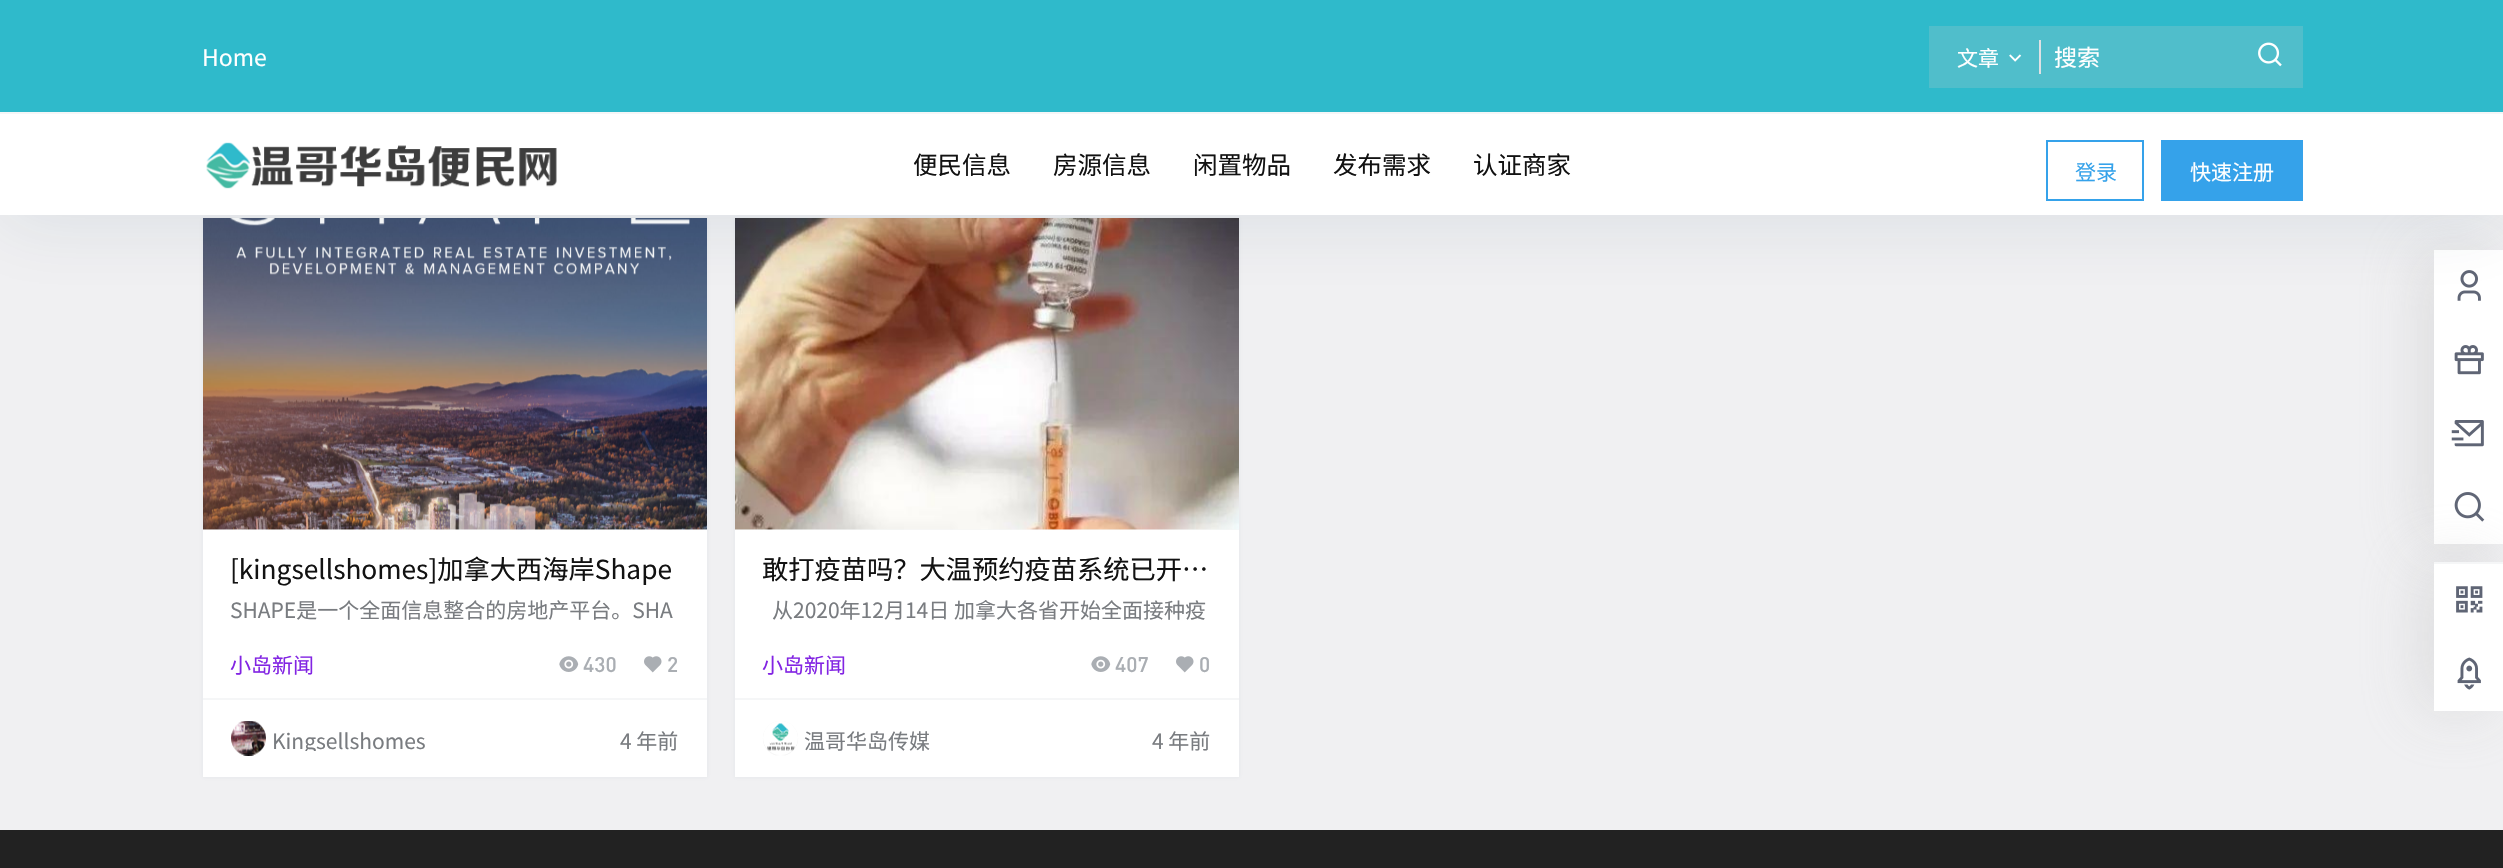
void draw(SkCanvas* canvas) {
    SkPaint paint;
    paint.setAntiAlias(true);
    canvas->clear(0xFFF0F0F2);
    paint.setColor(0x1A627C99);
    paint.setMaskFilter(SkMaskFilter::MakeBlur(kNormal_SkBlurStyle, 2));
    canvas->drawRect(SkRect::MakeXYWH(203, 219, 504, 558), paint);
    paint.setMaskFilter(nullptr);
    paint.setColor(0xFFF5F6F7);
    canvas->drawRect(SkRect::MakeXYWH(203, 529, 504, 1), paint);
    canvas->drawImageRect(SkImages::DeferredFromEncodedData(SkData::MakeFromFileName("img4.png")), SkRect::MakeXYWH(203, 218, 504, 312), SkSamplingOptions());
    paint.setColor(0x1A627C99);
    paint.setMaskFilter(SkMaskFilter::MakeBlur(kNormal_SkBlurStyle, 2));
    canvas->drawRect(SkRect::MakeXYWH(735, 219, 504, 558), paint);
    paint.setMaskFilter(nullptr);
    paint.setColor(0xFFF5F6F7);
    canvas->drawRect(SkRect::MakeXYWH(735, 529, 504, 1), paint);
    canvas->drawImageRect(SkImages::DeferredFromEncodedData(SkData::MakeFromFileName("img8.png")), SkRect::MakeXYWH(735, 218, 504, 312), SkSamplingOptions());
    paint.setColor(0x52B5B5B5);
    paint.setMaskFilter(SkMaskFilter::MakeBlur(kNormal_SkBlurStyle, 30.5f));
    canvas->drawRect(SkRect::MakeXYWH(2420, 250, 70, 294), paint);
    paint.setMaskFilter(nullptr);
    paint.setColor(0xFFFFFFFF);
    canvas->drawRect(SkRect::MakeXYWH(2434, 250, 69, 294), paint);
    canvas->drawImageRect(SkImages::DeferredFromEncodedData(SkData::MakeFromFileName("img10.png")), SkRect::MakeXYWH(2457, 270, 24, 31), SkSamplingOptions());
    paint.setColor(0x1A113A5D);
    paint.setMaskFilter(SkMaskFilter::MakeBlur(kNormal_SkBlurStyle, 35));
    canvas->drawRect(SkRect::MakeXYWH(0, 9, 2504, 213), paint);
    paint.setMaskFilter(nullptr);
    paint.setColor(0xFF2FBACB);
    canvas->drawRect(SkRect::MakeXYWH(0, 0, 2503, 112), paint);
    SkFont font1(fontMgr->matchFamilyStyle("Noto Sans CJK SC", SkFontStyle::Normal()), 23);
    font1.setSubpixel(true);
    paint.setColor(0xFFFFFFFF);
    canvas->drawString("Home", 202, 66, font1, paint);
    paint.setColor(0xFF50BECB);
    canvas->drawRect(SkRect::MakeXYWH(1929, 26, 374, 62), paint);
    paint.setColor(0xFFDEE1E4);
    canvas->drawRect(SkRect::MakeXYWH(2039, 40, 2, 34), paint);
    SkFont font2(fontMgr->matchFamilyStyle("Noto Sans CJK SC", SkFontStyle::Normal()), 21);
    font2.setSubpixel(true);
    paint.setColor(0xFFFFFFFF);
    canvas->drawString("文章", 1957, 66, font2, paint);
    canvas->drawImageRect(SkImages::DeferredFromEncodedData(SkData::MakeFromFileName("img1.png")), SkRect::MakeXYWH(2009, 54, 13, 8), SkSamplingOptions());
    canvas->save();
    canvas->clipRect(SkRect::MakeXYWH(2055, 40, 183, 34));
    canvas->drawString("搜索", 2054, 66, font1, paint);
    canvas->restore();
    canvas->drawImageRect(SkImages::DeferredFromEncodedData(SkData::MakeFromFileName("img2.png")), SkRect::MakeXYWH(2258, 42, 24, 25), SkSamplingOptions());
    paint.setColor(0xFFF5F6F7);
    canvas->drawRect(SkRect::MakeXYWH(0, 112, 2503, 2), paint);
    paint.setColor(0xFFFFFFFF);
    canvas->drawRect(SkRect::MakeXYWH(0, 114, 2503, 101), paint);
    canvas->drawImageRect(SkImages::DeferredFromEncodedData(SkData::MakeFromFileName("img3.png")), SkRect::MakeXYWH(206, 142, 351, 47), SkSamplingOptions());
    SkFont font3(fontMgr->matchFamilyStyle("Noto Sans CJK SC", SkFontStyle::Normal()), 24.5f);
    font3.setSubpixel(true);
    paint.setColor(0xFF121212);
    canvas->drawString("便民信息", 913, 174, font3, paint);
    canvas->drawString("房源信息", 1053, 174, font3, paint);
    canvas->drawString("闲置物品", 1193, 174, font3, paint);
    canvas->drawString("发布需求", 1333, 174, font3, paint);
    canvas->drawString("认证商家", 1473, 174, font3, paint);
    paint.setStyle(SkPaint::kStroke_Style);
    paint.setStrokeWidth(2);
    paint.setColor(0xFF35A2EA);
    canvas->drawRect(SkRect::MakeXYWH(2047, 141, 96, 59), paint);
    paint.setStyle(SkPaint::kFill_Style);
    canvas->drawString("登录", 2075, 180, font2, paint);
    canvas->drawRect(SkRect::MakeXYWH(2161, 140, 142, 61), paint);
    paint.setColor(0xFFFFFFFF);
    canvas->drawString("快速注册", 2190, 180, font2, paint);
    canvas->drawRect(SkRect::MakeXYWH(203, 530, 504, 247), paint);
    SkFont font4(fontMgr->matchFamilyStyle("Noto Sans CJK SC", SkFontStyle::Normal()), 26.25f);
    font4.setSubpixel(true);
    paint.setColor(0xFF121212);
    canvas->drawString("[kingsellshomes]加拿大西海岸Shape", 230, 579, font4, paint);
    paint.setColor(0xFF797C80);
    canvas->drawString("SHAPE是一个全面信息整合的房地产平台。SHA", 230, 618, font2, paint);
    paint.setColor(0xFF8224E3);
    canvas->drawString("小岛新闻", 230, 673, font2, paint);
    canvas->drawImageRect(SkImages::DeferredFromEncodedData(SkData::MakeFromFileName("img5.png")), SkRect::MakeXYWH(559, 656, 20, 16), SkSamplingOptions());
    SkFont font5(fontMgr->matchFamilyStyle("DIN", SkFontStyle(500, SkFontStyle::kNormal_Width, SkFontStyle::kUpright_Slant)), 21);
    font5.setSubpixel(true);
    paint.setColor(0xFFAAAEB3);
    canvas->drawString("430", 583, 672, font5, paint);
    canvas->drawImageRect(SkImages::DeferredFromEncodedData(SkData::MakeFromFileName("img6.png")), SkRect::MakeXYWH(644, 656, 18, 17), SkSamplingOptions());
    canvas->drawString("2", 667, 672, font5, paint);
    paint.setColor(0xFFF5F6F7);
    canvas->drawRect(SkRect::MakeXYWH(203, 698, 504, 2), paint);
    paint.setColor(0xFFEEEEEE);
    canvas->drawCircle(248.5f, 738.5f, 17.5f, paint);
    canvas->drawImageRect(SkImages::DeferredFromEncodedData(SkData::MakeFromFileName("img7.png")), SkRect::MakeXYWH(231, 721, 35, 35), SkSamplingOptions());
    canvas->save();
    canvas->clipRect(SkRect::MakeXYWH(273, 726, 152, 25));
    paint.setColor(0xFF797C80);
    canvas->drawString("Kingsellshomes", 272, 749, font2, paint);
    canvas->restore();
    canvas->drawString("4 年前", 620, 749, font2, paint);
    paint.setColor(0xFFFFFFFF);
    canvas->drawRect(SkRect::MakeXYWH(735, 530, 504, 247), paint);
    paint.setColor(0xFF121212);
    canvas->drawString("敢打疫苗吗？大温预约疫苗系统已开…", 762, 579, font4, paint);
    paint.setColor(0xFF797C80);
    canvas->drawString("从2020年12月14日 加拿大各省开始全面接种疫", 772, 618, font2, paint);
    paint.setColor(0xFF8224E3);
    canvas->drawString("小岛新闻", 762, 673, font2, paint);
    canvas->drawImageRect(SkImages::DeferredFromEncodedData(SkData::MakeFromFileName("img5.png")), SkRect::MakeXYWH(1091, 656, 20, 16), SkSamplingOptions());
    paint.setColor(0xFFAAAEB3);
    canvas->drawString("407", 1115, 672, font5, paint);
    canvas->drawImageRect(SkImages::DeferredFromEncodedData(SkData::MakeFromFileName("img6.png")), SkRect::MakeXYWH(1176, 656, 18, 17), SkSamplingOptions());
    canvas->drawString("0", 1199, 672, font5, paint);
    paint.setColor(0xFFF5F6F7);
    canvas->drawRect(SkRect::MakeXYWH(735, 698, 504, 2), paint);
    paint.setColor(0xFFEEEEEE);
    canvas->drawCircle(780.5f, 738.5f, 17.5f, paint);
    canvas->drawImageRect(SkImages::DeferredFromEncodedData(SkData::MakeFromFileName("img9.png")), SkRect::MakeXYWH(763, 721, 35, 35), SkSamplingOptions());
    paint.setColor(0xFF797C80);
    canvas->drawString("温哥华岛传媒", 804, 749, font2, paint);
    canvas->drawString("4 年前", 1152, 749, font2, paint);
    canvas->drawImageRect(SkImages::DeferredFromEncodedData(SkData::MakeFromFileName("img11.png")), SkRect::MakeXYWH(2454, 345, 30, 30), SkSamplingOptions());
    canvas->drawImageRect(SkImages::DeferredFromEncodedData(SkData::MakeFromFileName("img12.png")), SkRect::MakeXYWH(2451, 420, 33, 27), SkSamplingOptions());
    canvas->drawImageRect(SkImages::DeferredFromEncodedData(SkData::MakeFromFileName("img13.png")), SkRect::MakeXYWH(2454, 492, 31, 30), SkSamplingOptions());
    paint.setColor(0x52B5B5B5);
    paint.setMaskFilter(SkMaskFilter::MakeBlur(kNormal_SkBlurStyle, 30.5f));
    canvas->drawRect(SkRect::MakeXYWH(2420, 562, 70, 149), paint);
    paint.setMaskFilter(nullptr);
    paint.setColor(0xFFFFFFFF);
    canvas->drawRect(SkRect::MakeXYWH(2434, 564, 69, 147), paint);
    paint.setColor(0xFFF5F6F7);
    canvas->drawRect(SkRect::MakeXYWH(2434, 562, 69, 2), paint);
    canvas->drawImageRect(SkImages::DeferredFromEncodedData(SkData::MakeFromFileName("img14.png")), SkRect::MakeXYWH(2456, 586, 27, 27), SkSamplingOptions());
    canvas->drawImageRect(SkImages::DeferredFromEncodedData(SkData::MakeFromFileName("img15.png")), SkRect::MakeXYWH(2457, 657, 24, 33), SkSamplingOptions());
    paint.setColor(0xFF222222);
    canvas->drawRect(SkRect::MakeXYWH(0, 830, 2503, 38), paint);
}
